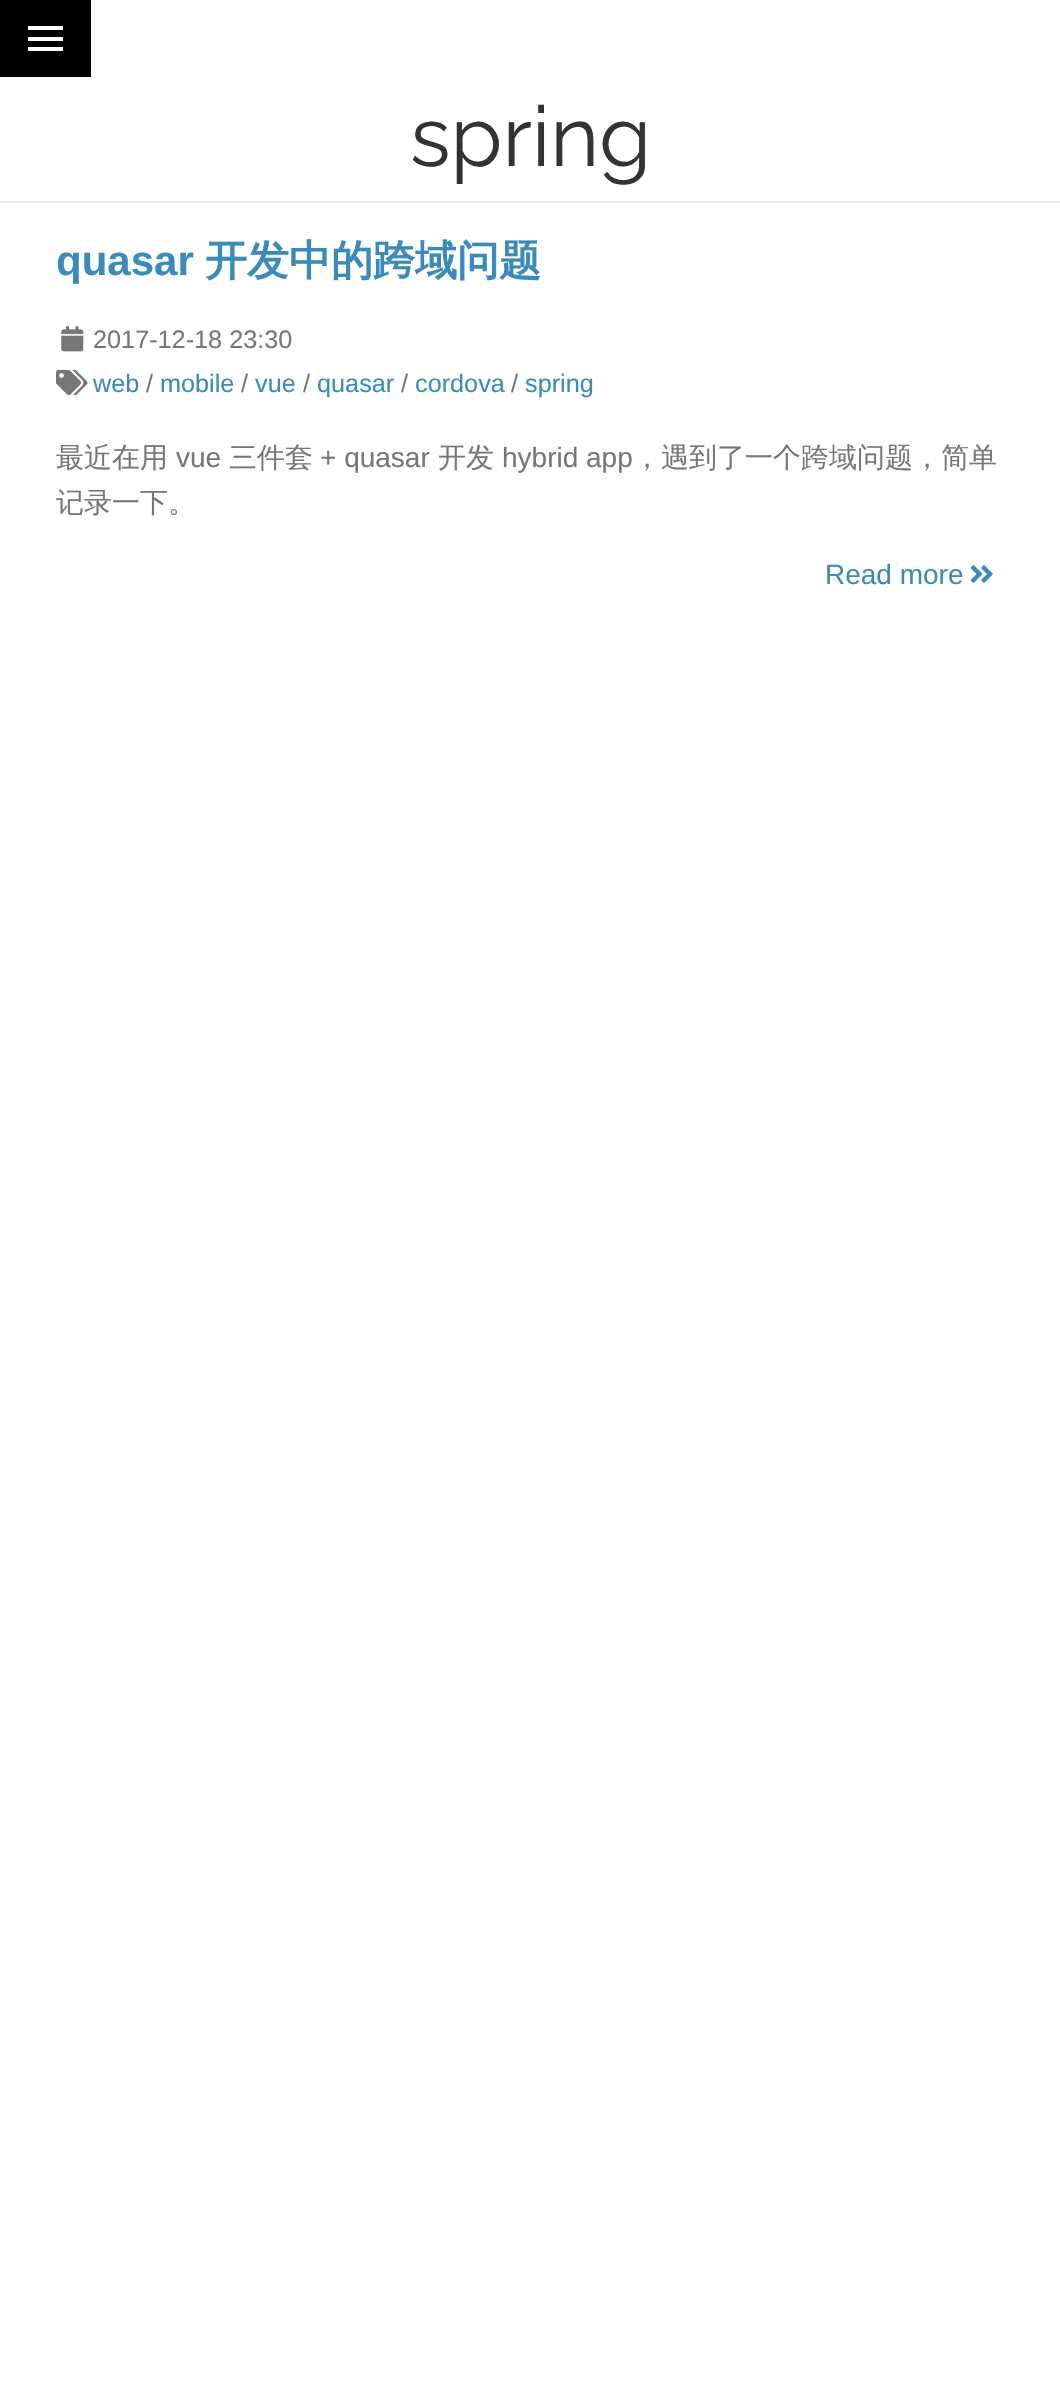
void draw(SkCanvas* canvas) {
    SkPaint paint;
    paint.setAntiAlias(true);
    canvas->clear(0xFFFFFFFF);
    paint.setColor(0xFF000000);
    canvas->drawRect(SkRect::MakeXYWH(0, 0, 91, 77), paint);
    paint.setColor(0xFFFFFFFF);
    canvas->drawRect(SkRect::MakeXYWH(28, 37, 35, 4), paint);
    canvas->drawRect(SkRect::MakeXYWH(28, 26, 35, 4), paint);
    canvas->drawRect(SkRect::MakeXYWH(28, 47, 35, 4), paint);
    paint.setColor(0xFFEEEEEE);
    canvas->drawRect(SkRect::MakeXYWH(0, 201, 1060, 2), paint);
    SkFont font1(fontMgr->matchFamilyStyle("Raleway", SkFontStyle(100, SkFontStyle::kNormal_Width, SkFontStyle::kUpright_Slant)), 84);
    font1.setSubpixel(true);
    paint.setColor(0xFF333333);
    canvas->drawString("spring", 410, 166, font1, paint);
    SkFont font2(fontMgr->matchFamilyStyle("Liberation Sans", SkFontStyle::Bold()), 42);
    font2.setSubpixel(true);
    paint.setColor(0xFF3B8BBA);
    canvas->drawString("quasar", 56, 275, font2, paint);
    SkFont font3(fontMgr->matchFamilyStyle("WenQuanYi Zen Hei", SkFontStyle::Bold()), 42);
    font3.setSubpixel(true);
    canvas->drawString("开发中的跨域问题", 205, 275, font3, paint);
    canvas->drawImageRect(SkImages::DeferredFromEncodedData(SkData::MakeFromFileName("img1.png")), SkRect::MakeXYWH(61, 326, 23, 26), SkSamplingOptions());
    SkFont font4(fontMgr->matchFamilyStyle("Liberation Sans", SkFontStyle::Normal()), 25.25f);
    font4.setSubpixel(true);
    paint.setColor(0xFF777777);
    canvas->drawString("2017-12-18 23:30", 93, 348, font4, paint);
    canvas->drawImageRect(SkImages::DeferredFromEncodedData(SkData::MakeFromFileName("img2.png")), SkRect::MakeXYWH(56, 369, 32, 27), SkSamplingOptions());
    paint.setColor(0xFF3B8BBA);
    canvas->drawString("web", 93, 392, font4, paint);
    paint.setColor(0xFF777777);
    canvas->drawString("/", 146, 392, font4, paint);
    paint.setColor(0xFF3B8BBA);
    canvas->drawString("mobile", 160, 392, font4, paint);
    paint.setColor(0xFF777777);
    canvas->drawString("/", 241, 392, font4, paint);
    paint.setColor(0xFF3B8BBA);
    canvas->drawString("vue", 255, 392, font4, paint);
    paint.setColor(0xFF777777);
    canvas->drawString("/", 303, 392, font4, paint);
    paint.setColor(0xFF3B8BBA);
    canvas->drawString("quasar", 317, 392, font4, paint);
    paint.setColor(0xFF777777);
    canvas->drawString("/", 401, 392, font4, paint);
    paint.setColor(0xFF3B8BBA);
    canvas->drawString("cordova", 415, 392, font4, paint);
    paint.setColor(0xFF777777);
    canvas->drawString("/", 511, 392, font4, paint);
    paint.setColor(0xFF3B8BBA);
    canvas->drawString("spring", 525, 392, font4, paint);
    SkFont font5(fontMgr->matchFamilyStyle("WenQuanYi Zen Hei", SkFontStyle(500, SkFontStyle::kNormal_Width, SkFontStyle::kUpright_Slant)), 28);
    font5.setSubpixel(true);
    paint.setColor(0xFF777777);
    canvas->drawString("最近在用", 56, 467, font5, paint);
    SkFont font6(fontMgr->matchFamilyStyle("Liberation Sans", SkFontStyle::Normal()), 28);
    font6.setSubpixel(true);
    canvas->drawString("vue", 176, 467, font6, paint);
    canvas->drawString("三件套", 229, 467, font5, paint);
    canvas->drawString("+ quasar", 320, 467, font6, paint);
    canvas->drawString("开发", 438, 467, font5, paint);
    canvas->drawString("hybrid app", 502, 467, font6, paint);
    canvas->drawString("，遇到了一个跨域问题，简单", 633, 467, font5, paint);
    canvas->drawString("记录一下。", 56, 512, font5, paint);
    paint.setColor(0xFF3B8BBA);
    canvas->drawString("Read more", 825, 584, font6, paint);
    canvas->drawImageRect(SkImages::DeferredFromEncodedData(SkData::MakeFromFileName("img3.png")), SkRect::MakeXYWH(970, 565, 23, 18), SkSamplingOptions());
}
